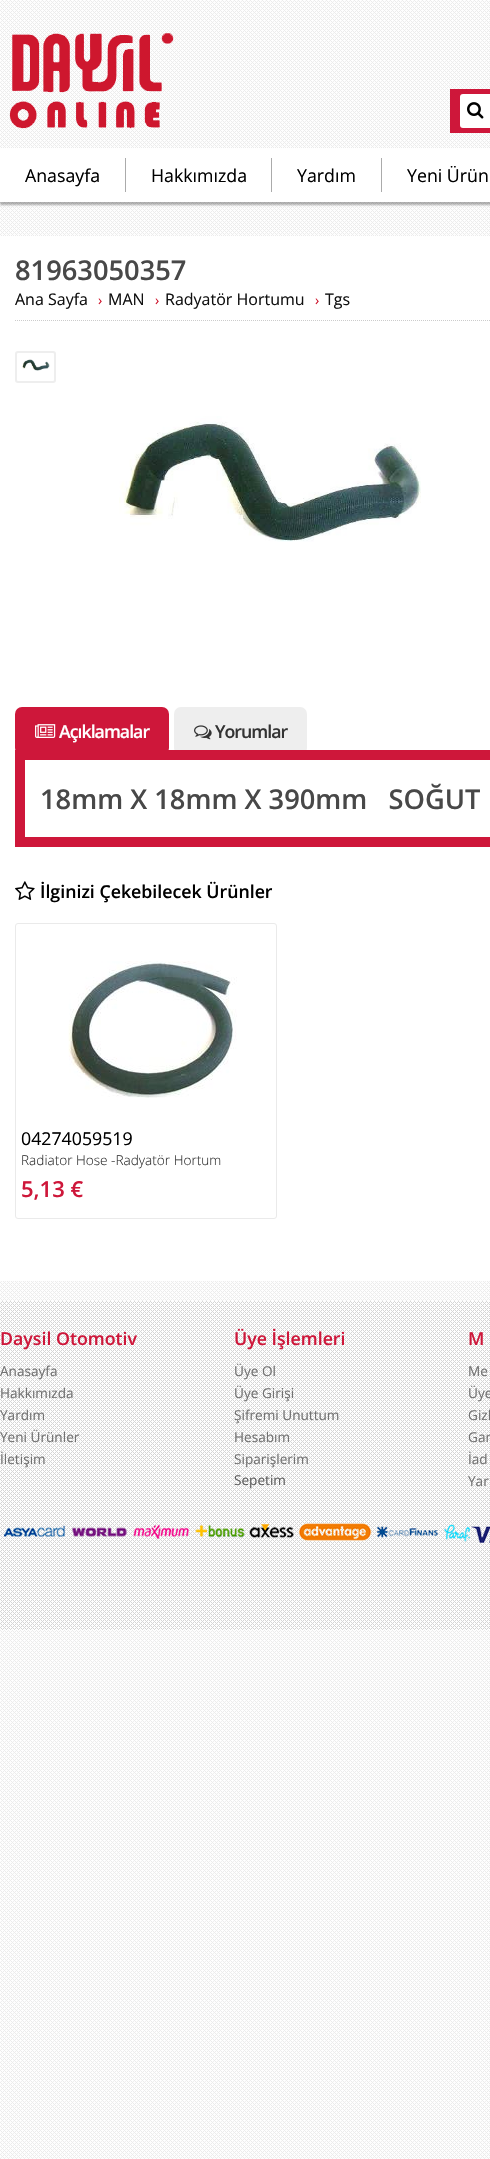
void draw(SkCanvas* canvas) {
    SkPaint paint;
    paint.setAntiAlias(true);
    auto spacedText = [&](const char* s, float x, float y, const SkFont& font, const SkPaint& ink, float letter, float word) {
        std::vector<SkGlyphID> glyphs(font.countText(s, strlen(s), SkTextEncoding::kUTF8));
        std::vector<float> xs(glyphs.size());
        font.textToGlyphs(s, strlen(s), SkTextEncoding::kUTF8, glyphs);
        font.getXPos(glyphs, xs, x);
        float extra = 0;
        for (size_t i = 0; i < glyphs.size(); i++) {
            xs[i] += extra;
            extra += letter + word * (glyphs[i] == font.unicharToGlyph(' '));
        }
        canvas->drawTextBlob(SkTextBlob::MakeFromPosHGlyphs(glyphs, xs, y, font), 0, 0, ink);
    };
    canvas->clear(0xFFFFFFFF);
    canvas->drawImageRect(SkImages::DeferredFromEncodedData(SkData::MakeFromFileName("img1.png")), SkRect::MakeXYWH(0, 0, 490, 2159), SkSamplingOptions());
    canvas->drawImageRect(SkImages::DeferredFromEncodedData(SkData::MakeFromFileName("img2.png")), SkRect::MakeXYWH(9, 33, 165, 96), SkSamplingOptions());
    paint.setColor(0xFFCE173A);
    canvas->drawRect(SkRect::MakeXYWH(450, 89, 40, 44), paint);
    paint.setColor(0xFFFFFFFF);
    canvas->drawRoundRect(SkRect::MakeXYWH(460, 94, 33, 34), 3, 3, paint);
    canvas->drawImageRect(SkImages::DeferredFromEncodedData(SkData::MakeFromFileName("img3.png")), SkRect::MakeXYWH(467, 102, 17, 17), SkSamplingOptions());
    paint.setColor(0x4D000000);
    paint.setMaskFilter(SkMaskFilter::MakeBlur(kNormal_SkBlurStyle, 1));
    canvas->drawRect(SkRect::MakeXYWH(0, 151, 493, 54), paint);
    paint.setMaskFilter(nullptr);
    paint.setColor(0xFFFFFFFF);
    canvas->drawRect(SkRect::MakeXYWH(0, 148, 490, 54), paint);
    SkFont font1(fontMgr->matchFamilyStyle("Open Sans", SkFontStyle::Normal()), 17.75f);
    font1.setSubpixel(true);
    paint.setColor(0xFF000000);
    canvas->drawString("Anasayfa", 25, 182, font1, paint);
    paint.setColor(0xFFABABAB);
    canvas->drawRect(SkRect::MakeXYWH(125, 158, 1, 34), paint);
    paint.setColor(0xFF000000);
    canvas->drawString("Hakkımızda", 151, 182, font1, paint);
    paint.setColor(0xFFABABAB);
    canvas->drawRect(SkRect::MakeXYWH(271, 158, 1, 34), paint);
    paint.setColor(0xFF000000);
    canvas->drawString("Yardım", 297, 182, font1, paint);
    paint.setColor(0xFFABABAB);
    canvas->drawRect(SkRect::MakeXYWH(381, 158, 1, 34), paint);
    paint.setColor(0xFF000000);
    canvas->drawString("Yeni Ürün", 407, 182, font1, paint);
    paint.setColor(0xFFFFFFFF);
    canvas->drawRect(SkRect::MakeXYWH(0, 236, 490, 1045), paint);
    SkFont font2(fontMgr->matchFamilyStyle("Open Sans", SkFontStyle(600, SkFontStyle::kNormal_Width, SkFontStyle::kUpright_Slant)), 27.25f);
    font2.setSubpixel(true);
    paint.setColor(0xFF484848);
    canvas->drawString("81963050357", 15, 280, font2, paint);
    SkFont font3(fontMgr->matchFamilyStyle("Open Sans", SkFontStyle::Normal()), 16);
    font3.setSubpixel(true);
    paint.setColor(0xFF111111);
    canvas->drawString("Ana Sayfa", 15, 305, font3, paint);
    SkFont font4(fontMgr->matchFamilyStyle("Open Sans", SkFontStyle::Normal()), 14);
    font4.setSubpixel(true);
    paint.setColor(0xFFCE172E);
    canvas->drawString("›", 98, 305, font4, paint);
    paint.setColor(0xFF111111);
    canvas->drawString("MAN", 108, 305, font3, paint);
    paint.setColor(0xFFCE172E);
    canvas->drawString("›", 155, 305, font4, paint);
    paint.setColor(0xFF111111);
    canvas->drawString("Radyatör Hortumu", 165, 305, font3, paint);
    paint.setColor(0xFFCE172E);
    canvas->drawString("›", 315, 305, font4, paint);
    paint.setColor(0xFF111111);
    canvas->drawString("Tgs", 325, 305, font3, paint);
    paint.setStyle(SkPaint::kStroke_Style);
    paint.setStrokeWidth(1);
    paint.setColor(0xFFCCCCCC);
    paint.setPathEffect(SkDashPathEffect::Make({{1, 1}}, 0));
    canvas->drawPath(SkPathBuilder().moveTo(15, 320.5f).lineTo(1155, 320.5f).detach(), paint);
    paint.setPathEffect(nullptr);
    paint.setStrokeWidth(2);
    paint.setColor(0xFFEEEEEE);
    canvas->drawRoundRect(SkRect::MakeXYWH(16, 352, 39, 30), 2, 2, paint);
    canvas->drawImageRect(SkImages::DeferredFromEncodedData(SkData::MakeFromFileName("img4.png")), SkRect::MakeXYWH(22, 359, 28, 12), SkSamplingOptions());
    canvas->drawImageRect(SkImages::DeferredFromEncodedData(SkData::MakeFromFileName("img5.png")), SkRect::MakeXYWH(119, 416, 302, 126), SkSamplingOptions());
    paint.setStyle(SkPaint::kFill_Style);
    paint.setColor(0xFFCE173A);
    canvas->drawRoundRect(SkRect::MakeXYWH(15, 707, 154, 48), 7, 7, paint);
    canvas->drawImageRect(SkImages::DeferredFromEncodedData(SkData::MakeFromFileName("img6.png")), SkRect::MakeXYWH(35, 724, 21, 14), SkSamplingOptions());
    SkFont font5(fontMgr->matchFamilyStyle("Open Sans", SkFontStyle(600, SkFontStyle::kNormal_Width, SkFontStyle::kUpright_Slant)), 17.75f);
    font5.setSubpixel(true);
    paint.setColor(0xFFFFFFFF);
    spacedText("Açıklamalar", 59, 738, font5, paint, -1, 0);
    paint.setColor(0xFFEEEEEE);
    canvas->drawRoundRect(SkRect::MakeXYWH(174, 707, 133, 48), 7, 7, paint);
    canvas->drawImageRect(SkImages::DeferredFromEncodedData(SkData::MakeFromFileName("img7.png")), SkRect::MakeXYWH(194, 725, 18, 15), SkSamplingOptions());
    paint.setColor(0xFF333333);
    spacedText("Yorumlar", 215, 738, font5, paint, -1, 0);
    paint.setStyle(SkPaint::kStroke_Style);
    paint.setStrokeWidth(10);
    paint.setColor(0xFFCE173A);
    canvas->drawRect(SkRect::MakeXYWH(20, 755, 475, 87), paint);
    paint.setStyle(SkPaint::kFill_Style);
    paint.setColor(0xFF484848);
    canvas->drawString("18mm X 18mm X 390mm   SOĞUT", 40, 809, font2, paint);
    canvas->drawImageRect(SkImages::DeferredFromEncodedData(SkData::MakeFromFileName("img8.png")), SkRect::MakeXYWH(15, 881, 20, 19), SkSamplingOptions());
    paint.setColor(0xFF000000);
    canvas->drawString("İlginizi Çekebilecek Ürünler", 40, 898, font5, paint);
    paint.setStyle(SkPaint::kStroke_Style);
    paint.setStrokeWidth(1);
    paint.setColor(0xFFEAEAEA);
    canvas->drawRoundRect(SkRect::MakeXYWH(15.5f, 923.5f, 261, 295), 2.5f, 2.5f, paint);
    canvas->drawImageRect(SkImages::DeferredFromEncodedData(SkData::MakeFromFileName("img9.png")), SkRect::MakeXYWH(68, 961, 169, 137), SkSamplingOptions());
    paint.setStyle(SkPaint::kFill_Style);
    paint.setColor(0xFF000000);
    canvas->drawString("04274059519", 21, 1145, font1, paint);
    SkFont font6(fontMgr->matchFamilyStyle("Open Sans", SkFontStyle(300, SkFontStyle::kNormal_Width, SkFontStyle::kUpright_Slant)), 13.6f);
    font6.setSubpixel(true);
    paint.setColor(0xFF333333);
    canvas->drawString("Radiator Hose -Radyatör Hortum", 21, 1165, font6, paint);
    SkFont font7(fontMgr->matchFamilyStyle("Open Sans", SkFontStyle(600, SkFontStyle::kNormal_Width, SkFontStyle::kUpright_Slant)), 22);
    font7.setSubpixel(true);
    paint.setColor(0xFFCE173A);
    canvas->drawString("5,13 €", 21, 1197, font7, paint);
    canvas->drawImageRect(SkImages::DeferredFromEncodedData(SkData::MakeFromFileName("img10.png")), SkRect::MakeXYWH(0, 1301, 490, 329), SkSamplingOptions());
    canvas->drawString("Daysil Otomotiv", 0, 1345, font5, paint);
    SkFont font8(fontMgr->matchFamilyStyle("Open Sans", SkFontStyle::Normal()), 13.6f);
    font8.setSubpixel(true);
    paint.setColor(0xFF717171);
    canvas->drawString("Anasayfa", 0, 1376, font8, paint);
    canvas->drawString("Hakkımızda", 0, 1398, font8, paint);
    canvas->drawString("Yardım", 0, 1420, font8, paint);
    canvas->drawString("Yeni Ürünler", 0, 1442, font8, paint);
    canvas->drawString("İletişim", 0, 1464, font8, paint);
    paint.setColor(0xFFCE173A);
    canvas->drawString("Üye İşlemleri", 234, 1345, font5, paint);
    paint.setColor(0xFF717171);
    canvas->drawString("Üye Ol", 234, 1376, font8, paint);
    canvas->drawString("Üye Girişi", 234, 1398, font8, paint);
    canvas->drawString("Şifremi Unuttum", 234, 1420, font8, paint);
    canvas->drawString("Hesabım", 234, 1442, font8, paint);
    canvas->drawString("Siparişlerim", 234, 1464, font8, paint);
    paint.setColor(0xFF5E5E5E);
    canvas->drawString("Sepetim", 234, 1485, font8, paint);
    paint.setColor(0xFFCE173A);
    canvas->drawString("M", 468, 1345, font5, paint);
    paint.setColor(0xFF717171);
    canvas->drawString("Me", 468, 1376, font8, paint);
    canvas->drawString("Üye", 468, 1398, font8, paint);
    canvas->drawString("Gizl", 468, 1420, font8, paint);
    canvas->drawString("Gar", 468, 1442, font8, paint);
    canvas->drawString("İad", 468, 1464, font8, paint);
    canvas->drawString("Yar", 468, 1486, font8, paint);
    canvas->drawImageRect(SkImages::DeferredFromEncodedData(SkData::MakeFromFileName("img11.png")), SkRect::MakeXYWH(4, 1523, 486, 20), SkSamplingOptions());
}
